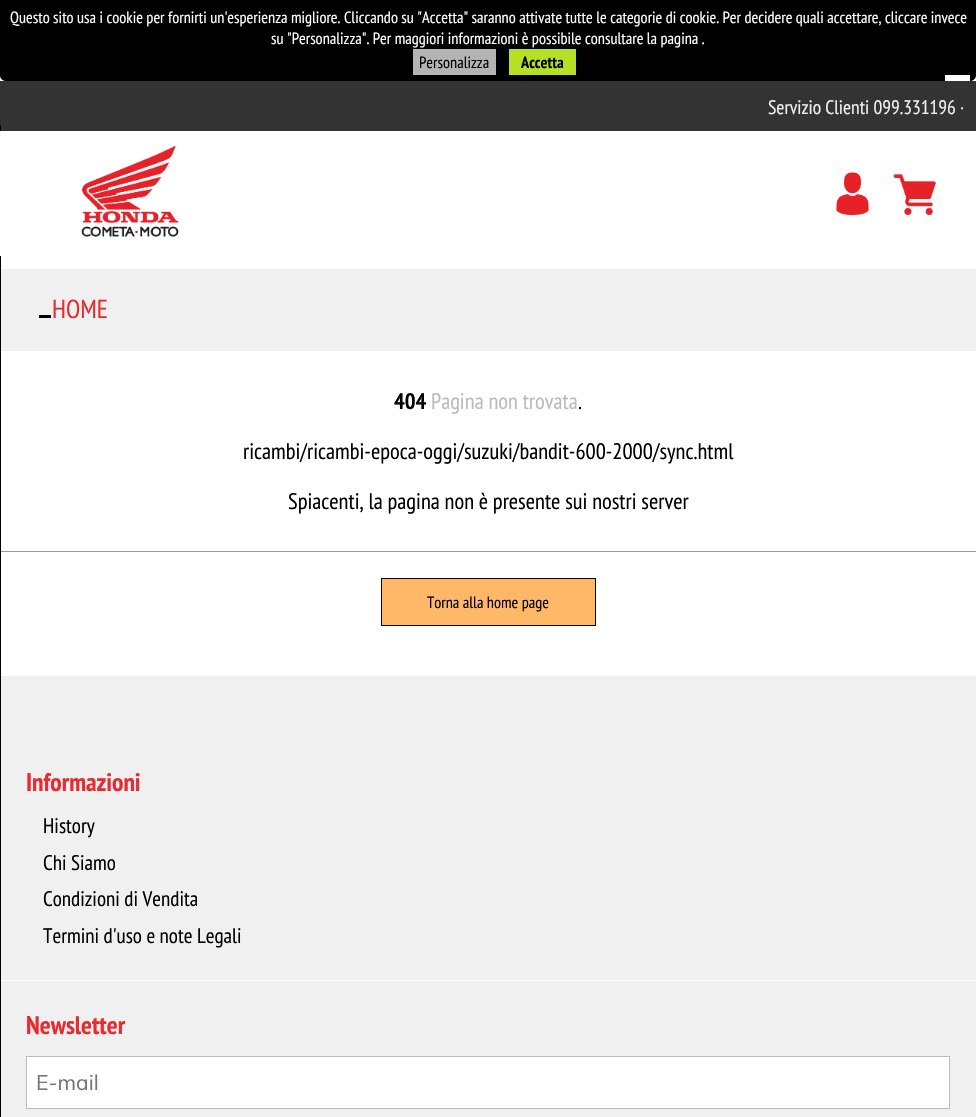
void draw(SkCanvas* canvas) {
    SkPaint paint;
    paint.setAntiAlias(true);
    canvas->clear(0xFFFFFFFF);
    paint.setColor(0xFF000000);
    canvas->drawPath(SkPathBuilder().moveTo(0, 0).lineTo(976, 0).lineTo(976, 75).cubicTo(976, 78.5f, 973.5f, 81, 970, 81).lineTo(6, 81).cubicTo(2.5f, 81, 0, 78.5f, 0, 75).close().detach(), paint);
    SkFont font1(fontMgr->matchFamilyStyle("PT Sans Narrow", SkFontStyle::Normal()), 16.25f);
    font1.setSubpixel(true);
    paint.setColor(0xFFFFFFFF);
    canvas->drawString("Questo sito usa i cookie per fornirti un'esperienza migliore. Cliccando su \"Accetta\" saranno attivate tutte le categorie di cookie. Per decidere quali accettare, cliccare invece", 10, 23, font1, paint);
    canvas->drawString("su \"Personalizza\". Per maggiori informazioni è possibile consultare la pagina .", 271, 44, font1, paint);
    paint.setColor(0xFFB4B4B4);
    canvas->drawRect(SkRect::MakeXYWH(413, 49, 83, 26), paint);
    paint.setColor(0xFF000000);
    canvas->drawString("Personalizza", 419, 68, font1, paint);
    paint.setColor(0xFFB6E026);
    canvas->drawRect(SkRect::MakeXYWH(509, 49, 67, 26), paint);
    SkFont font2(fontMgr->matchFamilyStyle("PT Sans Narrow", SkFontStyle::Bold()), 16.25f);
    font2.setSubpixel(true);
    paint.setColor(0xFF000000);
    canvas->drawString("Accetta", 521, 68, font2, paint);
    paint.setColor(0xFFFFFFFF);
    canvas->drawRect(SkRect::MakeXYWH(945, 75, 25, 6), paint);
    paint.setColor(0xFF333333);
    canvas->drawRect(SkRect::MakeXYWH(0, 81, 976, 50), paint);
    SkFont font3(fontMgr->matchFamilyStyle("PT Sans Narrow", SkFontStyle::Normal()), 19.5f);
    font3.setSubpixel(true);
    paint.setColor(0xFFF0F0F0);
    canvas->drawString("Servizio Clienti 099.331196 ·", 768, 114, font3, paint);
    paint.setColor(0xFF999999);
    canvas->drawRect(SkRect::MakeXYWH(0, 551, 976, 1), paint);
    paint.setColor(0xFF000000);
    canvas->drawRect(SkRect::MakeXYWH(0, 125, 1, 992), paint);
    paint.setColor(0xFFFFFFFF);
    canvas->drawRect(SkRect::MakeXYWH(0, 131, 1, 125), paint);
    canvas->drawImageRect(SkImages::DeferredFromEncodedData(SkData::MakeFromFileName("img1.png")), SkRect::MakeXYWH(81, 145, 98, 92), SkSamplingOptions());
    canvas->drawImageRect(SkImages::DeferredFromEncodedData(SkData::MakeFromFileName("img2.png")), SkRect::MakeXYWH(836, 172, 33, 43), SkSamplingOptions());
    canvas->drawImageRect(SkImages::DeferredFromEncodedData(SkData::MakeFromFileName("img3.png")), SkRect::MakeXYWH(893, 174, 43, 41), SkSamplingOptions());
    paint.setColor(0xFFF0F0F0);
    canvas->drawRect(SkRect::MakeXYWH(1, 269, 975, 82), paint);
    paint.setColor(0xFF000000);
    canvas->drawRect(SkRect::MakeXYWH(39, 315, 12, 3), paint);
    SkFont font4(fontMgr->matchFamilyStyle("PT Sans Narrow", SkFontStyle::Normal()), 26);
    font4.setSubpixel(true);
    paint.setColor(0xFFE72B30);
    canvas->drawString("HOME", 52, 318, font4, paint);
    SkFont font5(fontMgr->matchFamilyStyle("PT Sans Narrow", SkFontStyle::Bold()), 22.5f);
    font5.setSubpixel(true);
    paint.setColor(0xFF000000);
    canvas->drawString("404", 394, 409, font5, paint);
    SkFont font6(fontMgr->matchFamilyStyle("PT Sans Narrow", SkFontStyle::Normal()), 22.5f);
    font6.setSubpixel(true);
    paint.setColor(0xFFBBBBBB);
    canvas->drawString("Pagina non trovata", 431, 409, font6, paint);
    paint.setColor(0xFF000000);
    canvas->drawString(".", 578, 409, font6, paint);
    canvas->drawString("ricambi/ricambi-epoca-oggi/suzuki/bandit-600-2000/sync.html", 243, 459, font6, paint);
    canvas->drawString("Spiacenti, la pagina non è presente sui nostri server", 288, 509, font6, paint);
    paint.setColor(0xFFFFB768);
    canvas->drawRect(SkRect::MakeXYWH(381.5f, 578.5f, 214, 47), paint);
    paint.setStyle(SkPaint::kStroke_Style);
    paint.setStrokeWidth(1);
    paint.setColor(0xFF000000);
    canvas->drawRect(SkRect::MakeXYWH(381.5f, 578.5f, 214, 47), paint);
    paint.setStyle(SkPaint::kFill_Style);
    canvas->drawString("Torna alla home page", 427, 608, font1, paint);
    paint.setColor(0xFFF0F0F0);
    canvas->drawRect(SkRect::MakeXYWH(1, 676, 975, 441), paint);
    paint.setColor(0xFFFFFFFF);
    canvas->drawRect(SkRect::MakeXYWH(1, 980, 974, 1), paint);
    SkFont font7(fontMgr->matchFamilyStyle("PT Sans Narrow", SkFontStyle::Bold()), 25.5f);
    font7.setSubpixel(true);
    paint.setColor(0xFFE72B30);
    canvas->drawString("Informazioni", 26, 791, font7, paint);
    SkFont font8(fontMgr->matchFamilyStyle("PT Sans Narrow", SkFontStyle::Normal()), 21.1f);
    font8.setSubpixel(true);
    paint.setColor(0xFF000000);
    canvas->drawString("History", 43, 833, font8, paint);
    canvas->drawString("Chi Siamo", 43, 870, font8, paint);
    canvas->drawString("Condizioni di Vendita", 43, 906, font8, paint);
    canvas->drawString("Termini d'uso e note Legali", 43, 943, font8, paint);
    paint.setColor(0xFFE72B30);
    canvas->drawString("Newsletter", 26, 1034, font7, paint);
    paint.setColor(0xFFFFFFFF);
    canvas->drawRect(SkRect::MakeXYWH(26.5f, 1056.5f, 923, 52), paint);
    paint.setStyle(SkPaint::kStroke_Style);
    paint.setColor(0xFFBBBBBB);
    canvas->drawRect(SkRect::MakeXYWH(26.5f, 1056.5f, 923, 52), paint);
    SkFont font9(fontMgr->matchFamilyStyle("Muli", SkFontStyle::Normal()), 21.1f);
    font9.setSubpixel(true);
    paint.setStyle(SkPaint::kFill_Style);
    paint.setColor(0xFF757575);
    canvas->drawString("E-mail", 36, 1090, font9, paint);
}
